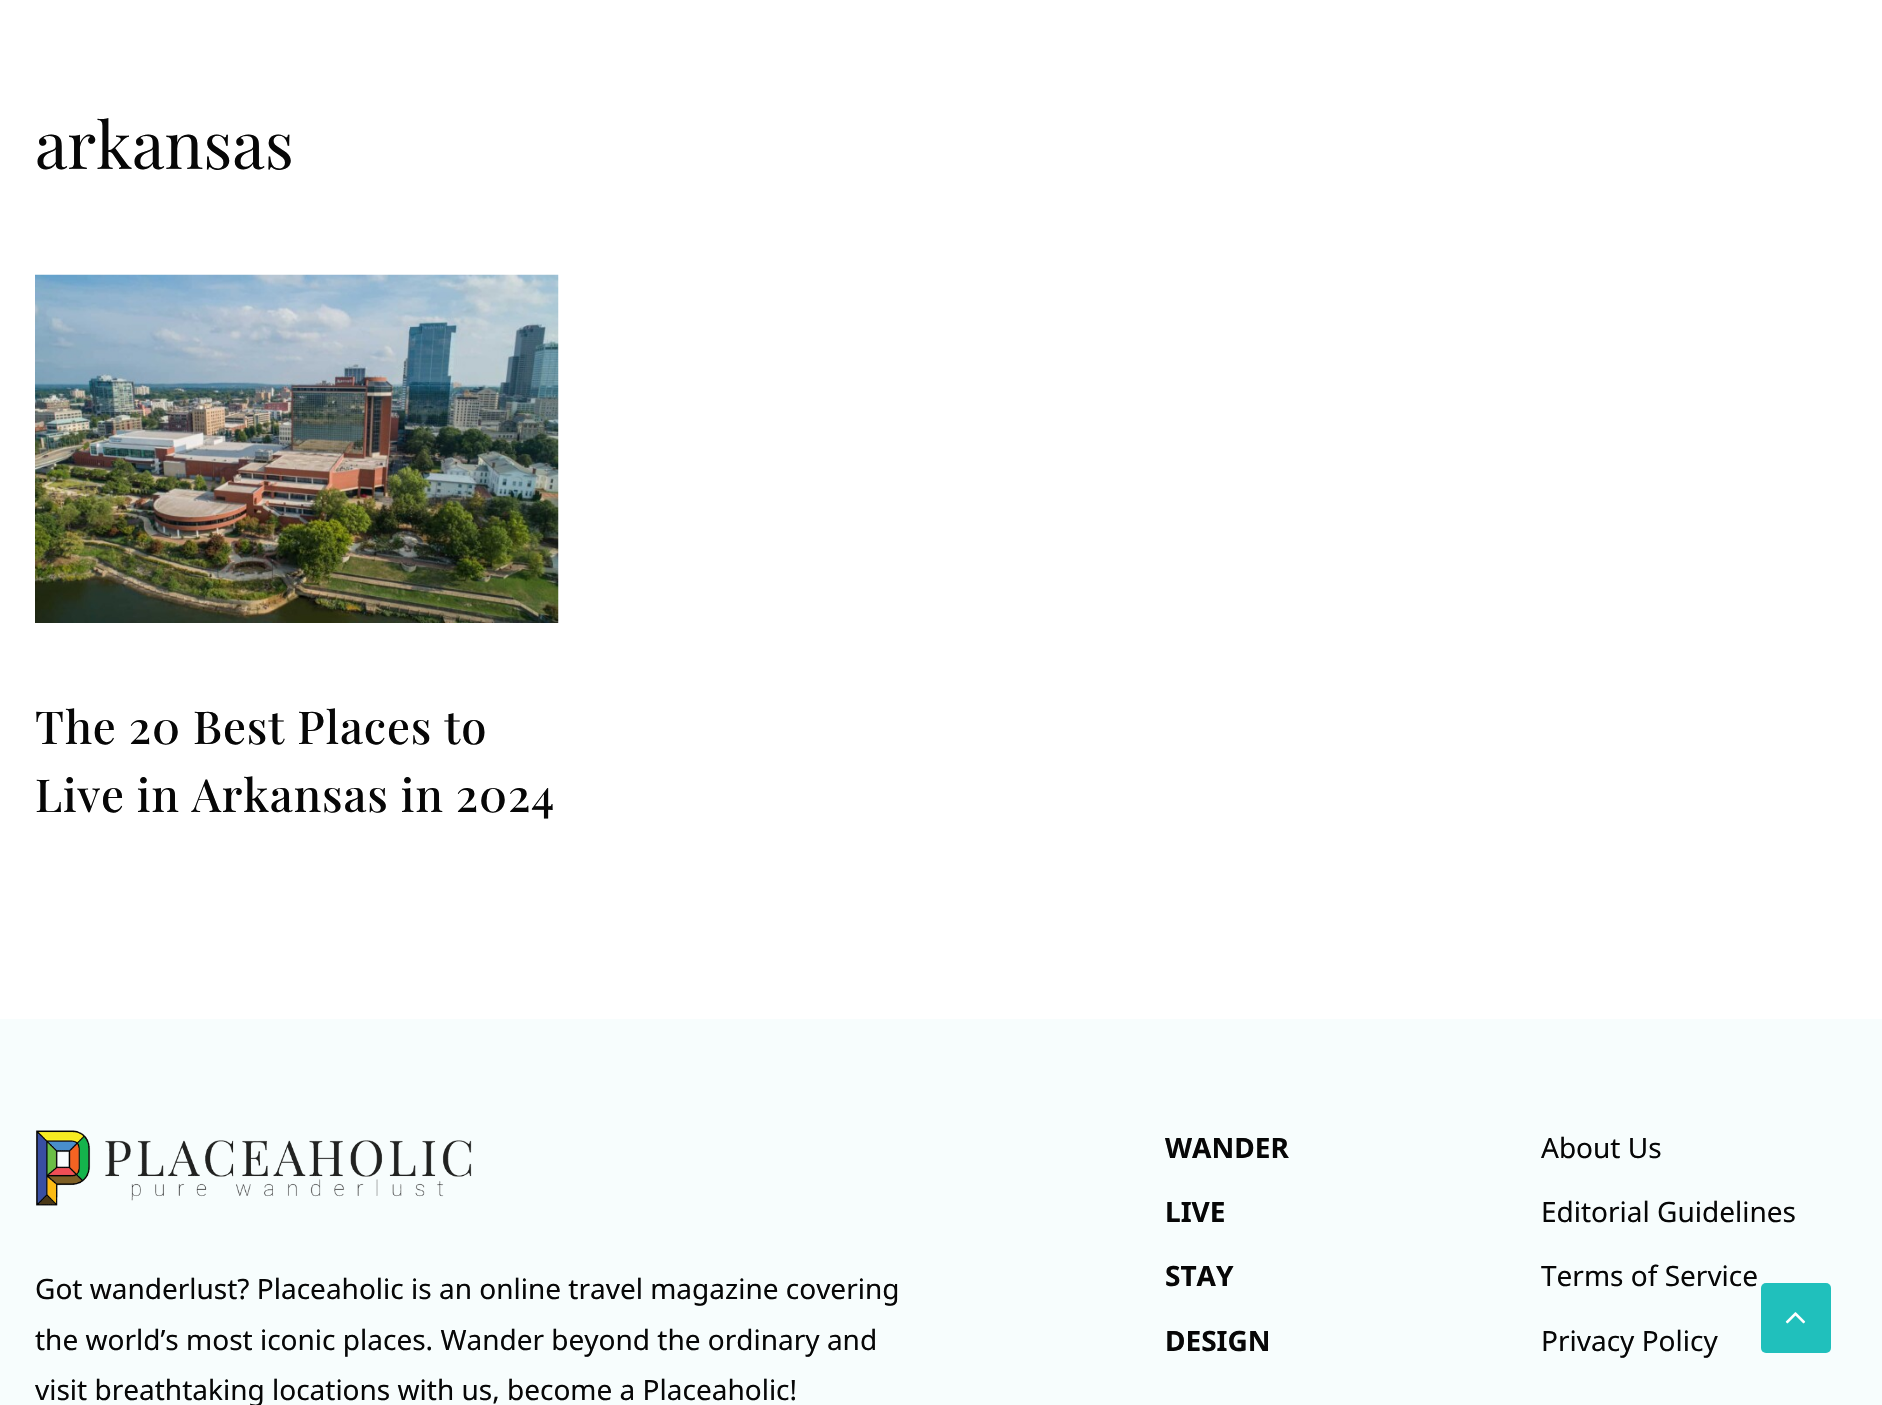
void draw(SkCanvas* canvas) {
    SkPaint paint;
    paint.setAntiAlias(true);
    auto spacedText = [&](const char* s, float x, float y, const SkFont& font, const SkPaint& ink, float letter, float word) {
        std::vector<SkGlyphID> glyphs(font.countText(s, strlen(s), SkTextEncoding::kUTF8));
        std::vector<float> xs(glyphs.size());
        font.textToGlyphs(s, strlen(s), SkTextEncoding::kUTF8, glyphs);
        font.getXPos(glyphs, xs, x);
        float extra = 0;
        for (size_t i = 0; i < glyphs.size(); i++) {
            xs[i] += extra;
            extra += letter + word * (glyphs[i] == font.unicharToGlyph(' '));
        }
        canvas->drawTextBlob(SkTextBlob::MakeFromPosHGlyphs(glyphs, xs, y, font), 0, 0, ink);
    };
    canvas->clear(0xFFFFFFFF);
    SkFont font1(fontMgr->matchFamilyStyle("Playfair Display", SkFontStyle::Normal()), 65);
    font1.setSubpixel(true);
    paint.setColor(0xFF070707);
    canvas->drawString("arkansas", 35, 169, font1, paint);
    canvas->drawImageRect(SkImages::DeferredFromEncodedData(SkData::MakeFromFileName("img1.png")), SkRect::MakeXYWH(35, 274, 524, 349), SkSamplingOptions());
    SkFont font2(fontMgr->matchFamilyStyle("Playfair Display", SkFontStyle(500, SkFontStyle::kNormal_Width, SkFontStyle::kUpright_Slant)), 45.5f);
    font2.setSubpixel(true);
    spacedText("The 20 Best Places to", 35, 744, font2, paint, 0.9f, 0);
    spacedText("Live in Arkansas in 2024", 35, 812, font2, paint, 0.9f, 0);
    paint.setColor(0xFFF7FDFD);
    canvas->drawRect(SkRect::MakeXYWH(0, 1019, 1882, 386), paint);
    canvas->drawImageRect(SkImages::DeferredFromEncodedData(SkData::MakeFromFileName("img2.png")), SkRect::MakeXYWH(36, 1130, 436, 76), SkSamplingOptions());
    SkFont font3(fontMgr->matchFamilyStyle("Noto Sans", SkFontStyle::Normal()), 28);
    font3.setSubpixel(true);
    paint.setColor(0xFF070707);
    canvas->drawString("Got wanderlust? Placeaholic is an online travel magazine covering", 35, 1299, font3, paint);
    canvas->drawString("the world’s most iconic places. Wander beyond the ordinary and", 35, 1350, font3, paint);
    canvas->drawString("visit breathtaking locations with us, become a Placeaholic!", 35, 1400, font3, paint);
    SkFont font4(fontMgr->matchFamilyStyle("Noto Sans", SkFontStyle::Bold()), 28);
    font4.setSubpixel(true);
    canvas->drawString("WANDER", 1165, 1158, font4, paint);
    canvas->drawString("LIVE", 1165, 1222, font4, paint);
    canvas->drawString("STAY", 1165, 1286, font4, paint);
    canvas->drawString("DESIGN", 1165, 1351, font4, paint);
    canvas->drawString("About Us", 1541, 1158, font3, paint);
    canvas->drawString("Editorial Guidelines", 1541, 1222, font3, paint);
    canvas->drawString("Terms of Service", 1541, 1286, font3, paint);
    canvas->drawString("Privacy Policy", 1541, 1351, font3, paint);
    paint.setColor(0xFF20C0BC);
    canvas->drawRoundRect(SkRect::MakeXYWH(1761, 1283, 70, 70), 5, 5, paint);
    canvas->drawImageRect(SkImages::DeferredFromEncodedData(SkData::MakeFromFileName("img3.png")), SkRect::MakeXYWH(1785, 1312, 21, 12), SkSamplingOptions());
}
